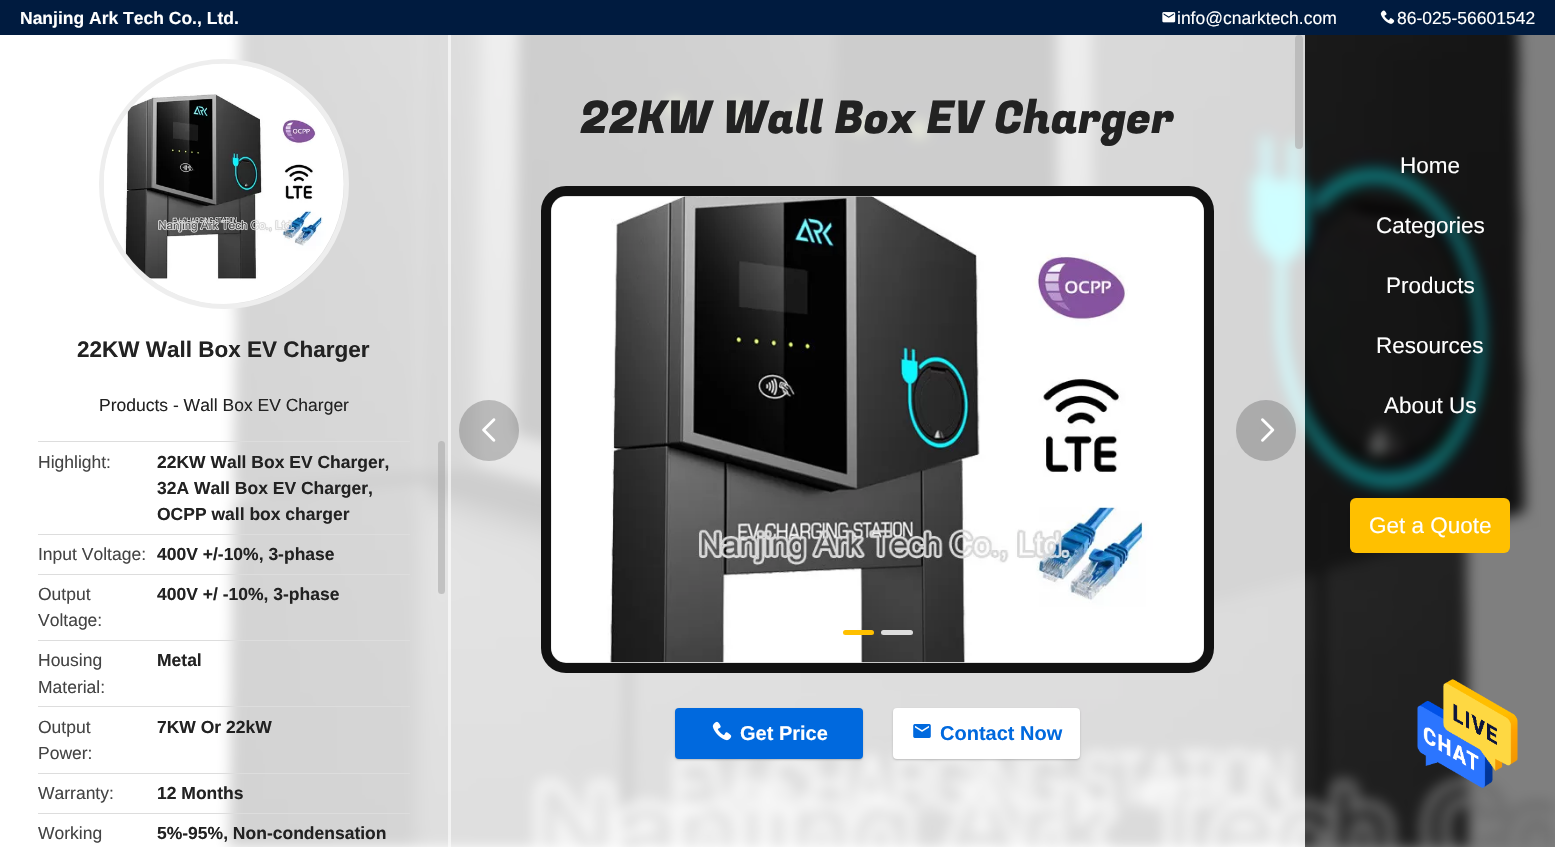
void draw(SkCanvas* canvas) {
    SkPaint paint;
    paint.setAntiAlias(true);
    canvas->clear(0xFFFFFFFF);
    paint.setColor(0xFF001B3F);
    canvas->drawRect(SkRect::MakeXYWH(0, 0, 1555, 35), paint);
    SkFont font1(fontMgr->matchFamilyStyle("Liberation Sans", SkFontStyle::Bold()), 17.5f);
    font1.setSubpixel(true);
    paint.setColor(0xFFFFFFFF);
    canvas->drawString("Nanjing Ark Tech Co., Ltd.", 20, 24, font1, paint);
    canvas->drawImageRect(SkImages::DeferredFromEncodedData(SkData::MakeFromFileName("img1.png")), SkRect::MakeXYWH(1162, 12, 14, 11), SkSamplingOptions());
    SkFont font2(fontMgr->matchFamilyStyle("Liberation Sans", SkFontStyle::Normal()), 17.5f);
    font2.setSubpixel(true);
    canvas->drawString("info@cnarktech.com", 1177, 24, font2, paint);
    canvas->drawImageRect(SkImages::DeferredFromEncodedData(SkData::MakeFromFileName("img2.png")), SkRect::MakeXYWH(1380, 10, 15, 14), SkSamplingOptions());
    canvas->drawString("86-025-56601542", 1397, 24, font2, paint);
    canvas->drawImageRect(SkImages::DeferredFromEncodedData(SkData::MakeFromFileName("img3.png")), SkRect::MakeXYWH(215, 35, 1340, 812), SkSamplingOptions());
    paint.setColor(0xCCFFFFFF);
    canvas->drawRect(SkRect::MakeXYWH(215, 35, 235, 812), paint);
    paint.setColor(0x99FFFFFF);
    canvas->drawRect(SkRect::MakeXYWH(448, 35, 3, 812), paint);
    paint.setStyle(SkPaint::kStroke_Style);
    paint.setStrokeWidth(5);
    paint.setColor(0xFFEEEEEE);
    canvas->drawCircle(224, 184, 122.5f, paint);
    canvas->drawImageRect(SkImages::DeferredFromEncodedData(SkData::MakeFromFileName("img4.png")), SkRect::MakeXYWH(104, 63, 240, 241), SkSamplingOptions());
    SkFont font3(fontMgr->matchFamilyStyle("Liberation Sans", SkFontStyle::Bold()), 22.5f);
    font3.setSubpixel(true);
    paint.setStyle(SkPaint::kFill_Style);
    paint.setColor(0xFF222222);
    canvas->drawString("22KW Wall Box EV Charger", 77, 357, font3, paint);
    canvas->drawString("Products - Wall Box EV Charger", 99, 411, font2, paint);
    paint.setColor(0xFFDDDDDD);
    canvas->drawRect(SkRect::MakeXYWH(38, 441, 372, 1), paint);
    paint.setColor(0xFF444444);
    canvas->drawString("Highlight:", 38, 468, font2, paint);
    paint.setColor(0xFF222222);
    canvas->drawString("22KW Wall Box EV Charger,", 157, 468, font1, paint);
    canvas->drawString("32A Wall Box EV Charger,", 157, 494, font1, paint);
    canvas->drawString("OCPP wall box charger", 157, 520, font1, paint);
    paint.setColor(0xFFDDDDDD);
    canvas->drawRect(SkRect::MakeXYWH(38, 534, 372, 1), paint);
    paint.setColor(0xFF444444);
    canvas->drawString("Input Voltage:", 38, 560, font2, paint);
    paint.setColor(0xFF222222);
    canvas->drawString("400V +/-10%, 3-phase", 157, 560, font1, paint);
    paint.setColor(0xFFDDDDDD);
    canvas->drawRect(SkRect::MakeXYWH(38, 574, 372, 1), paint);
    paint.setColor(0xFF444444);
    canvas->drawString("Output", 38, 600, font2, paint);
    canvas->drawString("Voltage:", 38, 626, font2, paint);
    paint.setColor(0xFF222222);
    canvas->drawString("400V +/ -10%, 3-phase", 157, 600, font1, paint);
    paint.setColor(0xFFDDDDDD);
    canvas->drawRect(SkRect::MakeXYWH(38, 640, 372, 1), paint);
    paint.setColor(0xFF444444);
    canvas->drawString("Housing", 38, 666, font2, paint);
    canvas->drawString("Material:", 38, 693, font2, paint);
    paint.setColor(0xFF222222);
    canvas->drawString("Metal", 157, 666, font1, paint);
    paint.setColor(0xFFDDDDDD);
    canvas->drawRect(SkRect::MakeXYWH(38, 706, 372, 1), paint);
    paint.setColor(0xFF444444);
    canvas->drawString("Output", 38, 733, font2, paint);
    canvas->drawString("Power:", 38, 759, font2, paint);
    paint.setColor(0xFF222222);
    canvas->drawString("7KW Or 22kW", 157, 733, font1, paint);
    paint.setColor(0xFFDDDDDD);
    canvas->drawRect(SkRect::MakeXYWH(38, 773, 372, 1), paint);
    paint.setColor(0xFF444444);
    canvas->drawString("Warranty:", 38, 799, font2, paint);
    paint.setColor(0xFF222222);
    canvas->drawString("12 Months", 157, 799, font1, paint);
    paint.setColor(0xFFDDDDDD);
    canvas->drawRect(SkRect::MakeXYWH(38, 813, 372, 1), paint);
    paint.setColor(0xFF444444);
    canvas->drawString("Working", 38, 839, font2, paint);
    paint.setColor(0xFF222222);
    canvas->drawString("5%-95%, Non-condensation", 157, 839, font1, paint);
    paint.setColor(0x99AAAAAA);
    canvas->drawRoundRect(SkRect::MakeXYWH(438, 441, 7, 153), 3.5f, 3.5f, paint);
    paint.setColor(0xCCFFFFFF);
    canvas->drawRect(SkRect::MakeXYWH(450, 35, 855, 812), paint);
    SkFont font4(fontMgr->matchFamilyStyle("Fugaz One", SkFontStyle::Normal()), 45);
    font4.setSubpixel(true);
    paint.setColor(0xFF222222);
    canvas->drawString("22KW Wall Box EV Charger", 580, 133, font4, paint);
    paint.setColor(0x99AAAAAA);
    canvas->drawRoundRect(SkRect::MakeXYWH(1295, 35, 8, 114), 4, 4, paint);
    paint.setStyle(SkPaint::kStroke_Style);
    paint.setStrokeWidth(10);
    paint.setColor(0xFF111111);
    canvas->drawRoundRect(SkRect::MakeXYWH(546, 191, 663, 477), 20, 20, paint);
    canvas->drawImageRect(SkImages::DeferredFromEncodedData(SkData::MakeFromFileName("img5.png")), SkRect::MakeXYWH(551, 196, 653, 467), SkSamplingOptions());
    paint.setStyle(SkPaint::kFill_Style);
    paint.setColor(0x33000000);
    canvas->drawRoundRect(SkRect::MakeXYWH(459, 400, 60, 61), 30, 30, paint);
    canvas->drawImageRect(SkImages::DeferredFromEncodedData(SkData::MakeFromFileName("img6.png")), SkRect::MakeXYWH(482, 418, 14, 24), SkSamplingOptions());
    canvas->drawRoundRect(SkRect::MakeXYWH(1236, 400, 60, 61), 30, 30, paint);
    canvas->drawImageRect(SkImages::DeferredFromEncodedData(SkData::MakeFromFileName("img7.png")), SkRect::MakeXYWH(1261, 418, 14, 24), SkSamplingOptions());
    paint.setColor(0xFFFFC000);
    canvas->drawRoundRect(SkRect::MakeXYWH(843, 630, 31, 5), 2.5f, 2.5f, paint);
    paint.setColor(0xFFDDDDDD);
    canvas->drawRoundRect(SkRect::MakeXYWH(881, 630, 32, 5), 2.5f, 2.5f, paint);
    paint.setColor(0x33000000);
    paint.setMaskFilter(SkMaskFilter::MakeBlur(kNormal_SkBlurStyle, 1));
    canvas->drawRoundRect(SkRect::MakeXYWH(675, 709, 188, 51), 4, 4, paint);
    paint.setMaskFilter(nullptr);
    paint.setColor(0xFF0069DE);
    canvas->drawRoundRect(SkRect::MakeXYWH(675, 708, 188, 51), 4, 4, paint);
    canvas->drawImageRect(SkImages::DeferredFromEncodedData(SkData::MakeFromFileName("img8.png")), SkRect::MakeXYWH(712, 721, 20, 20), SkSamplingOptions());
    SkFont font5(fontMgr->matchFamilyStyle("Liberation Sans", SkFontStyle::Bold()), 20);
    font5.setSubpixel(true);
    paint.setColor(0xFFFFFFFF);
    canvas->drawString("Get Price", 740, 740, font5, paint);
    paint.setColor(0x33000000);
    paint.setMaskFilter(SkMaskFilter::MakeBlur(kNormal_SkBlurStyle, 1));
    canvas->drawRoundRect(SkRect::MakeXYWH(893, 709, 187, 51), 4, 4, paint);
    paint.setMaskFilter(nullptr);
    paint.setColor(0xFFFFFFFF);
    canvas->drawRoundRect(SkRect::MakeXYWH(893, 708, 187, 51), 4, 4, paint);
    canvas->drawImageRect(SkImages::DeferredFromEncodedData(SkData::MakeFromFileName("img9.png")), SkRect::MakeXYWH(913, 724, 18, 14), SkSamplingOptions());
    paint.setColor(0xFF0069DE);
    canvas->drawString("Contact Now", 940, 740, font5, paint);
    paint.setColor(0x80000000);
    canvas->drawRect(SkRect::MakeXYWH(1305, 35, 250, 812), paint);
    SkFont font6(fontMgr->matchFamilyStyle("Liberation Sans", SkFontStyle::Normal()), 22.5f);
    font6.setSubpixel(true);
    paint.setColor(0xFFFFFFFF);
    canvas->drawString("Home", 1400, 173, font6, paint);
    canvas->drawString("Categories", 1376, 233, font6, paint);
    canvas->drawString("Products", 1386, 293, font6, paint);
    canvas->drawString("Resources", 1376, 353, font6, paint);
    canvas->drawString("About Us", 1384, 413, font6, paint);
    paint.setColor(0xFFFFC000);
    canvas->drawRoundRect(SkRect::MakeXYWH(1350, 498, 160, 55), 6, 6, paint);
    paint.setColor(0xFFFFFFFF);
    canvas->drawString("Get a Quote", 1369, 533, font6, paint);
    canvas->drawImageRect(SkImages::DeferredFromEncodedData(SkData::MakeFromFileName("img10.png")), SkRect::MakeXYWH(1417, 679, 101, 109), SkSamplingOptions());
}
